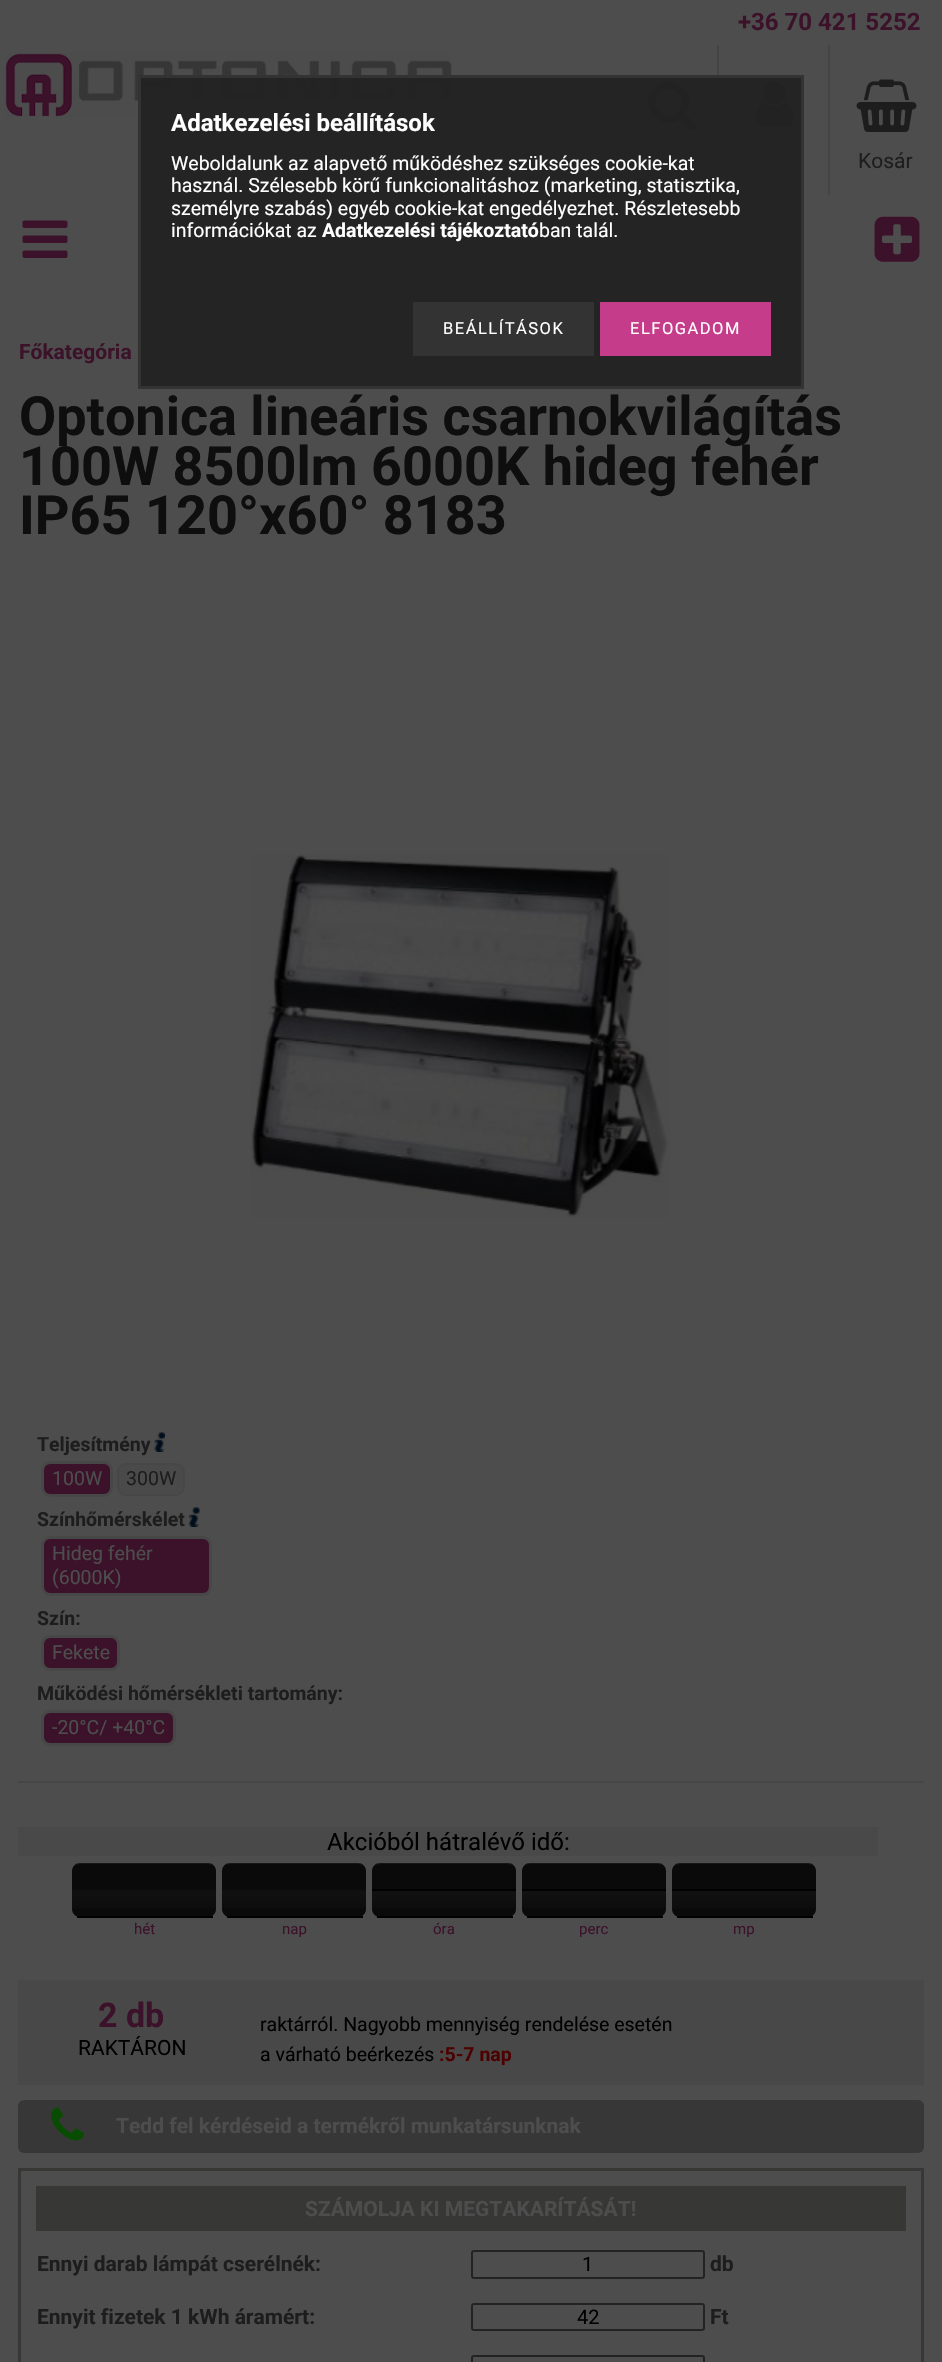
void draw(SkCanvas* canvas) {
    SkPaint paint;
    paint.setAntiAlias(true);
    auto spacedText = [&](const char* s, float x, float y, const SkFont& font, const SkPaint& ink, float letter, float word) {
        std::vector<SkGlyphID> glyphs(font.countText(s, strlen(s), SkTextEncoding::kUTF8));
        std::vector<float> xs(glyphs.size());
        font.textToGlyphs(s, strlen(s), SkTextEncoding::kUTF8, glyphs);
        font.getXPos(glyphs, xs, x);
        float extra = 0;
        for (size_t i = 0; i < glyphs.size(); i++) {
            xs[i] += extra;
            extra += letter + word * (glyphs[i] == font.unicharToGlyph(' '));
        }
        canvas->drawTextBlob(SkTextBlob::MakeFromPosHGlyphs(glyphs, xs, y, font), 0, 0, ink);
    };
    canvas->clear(0xFF4D4D4D);
    SkFont font1(fontMgr->matchFamilyStyle("Roboto", SkFontStyle::Bold()), 24);
    font1.setSubpixel(true);
    paint.setColor(0xFF3B1229);
    canvas->drawString("+36 70 421 5252", 738, 30, font1, paint);
    canvas->drawImageRect(SkImages::DeferredFromEncodedData(SkData::MakeFromFileName("img1.png")), SkRect::MakeXYWH(5, 53, 447, 64), SkSamplingOptions());
    canvas->drawImageRect(SkImages::DeferredFromEncodedData(SkData::MakeFromFileName("img2.png")), SkRect::MakeXYWH(648, 81, 49, 50), SkSamplingOptions());
    paint.setColor(0xFF444444);
    canvas->drawRect(SkRect::MakeXYWH(828, 45, 2, 150), paint);
    canvas->drawRect(SkRect::MakeXYWH(717, 45, 2, 150), paint);
    canvas->drawImageRect(SkImages::DeferredFromEncodedData(SkData::MakeFromFileName("img3.png")), SkRect::MakeXYWH(756, 81, 38, 46), SkSamplingOptions());
    canvas->drawImageRect(SkImages::DeferredFromEncodedData(SkData::MakeFromFileName("img4.png")), SkRect::MakeXYWH(856, 79, 61, 53), SkSamplingOptions());
    SkFont font2(fontMgr->matchFamilyStyle("Roboto", SkFontStyle::Normal()), 21);
    font2.setSubpixel(true);
    paint.setColor(0xFF1D1D1D);
    canvas->drawString("Kosár", 858, 168, font2, paint);
    canvas->drawImageRect(SkImages::DeferredFromEncodedData(SkData::MakeFromFileName("img5.png")), SkRect::MakeXYWH(874, 216, 46, 46), SkSamplingOptions());
    canvas->drawImageRect(SkImages::DeferredFromEncodedData(SkData::MakeFromFileName("img6.png")), SkRect::MakeXYWH(22, 220, 46, 38), SkSamplingOptions());
    SkFont font3(fontMgr->matchFamilyStyle("Roboto", SkFontStyle::Bold()), 21);
    font3.setSubpixel(true);
    paint.setColor(0xFF3B1229);
    canvas->drawString("Főkategória", 19, 359, font3, paint);
    SkFont font4(fontMgr->matchFamilyStyle("Roboto", SkFontStyle::Bold()), 54);
    font4.setSubpixel(true);
    paint.setColor(0xFF0E0E0E);
    canvas->drawString("Optonica lineáris csarnokvilágítás", 19, 435, font4, paint);
    canvas->drawString("100W 8500lm 6000K hideg fehér", 19, 485, font4, paint);
    canvas->drawString("IP65 120°x60° 8183", 19, 534, font4, paint);
    paint.setColor(0xFF474646);
    canvas->drawRect(SkRect::MakeXYWH(18, 1781, 906, 2), paint);
    canvas->drawImageRect(SkImages::DeferredFromEncodedData(SkData::MakeFromFileName("img7.png")), SkRect::MakeXYWH(250, 854, 420, 364), SkSamplingOptions());
    SkFont font5(fontMgr->matchFamilyStyle("Roboto", SkFontStyle::Bold()), 19.5f);
    font5.setSubpixel(true);
    paint.setColor(0xFF1D1D1D);
    canvas->drawString("Teljesítmény", 37, 1451, font5, paint);
    canvas->drawImageRect(SkImages::DeferredFromEncodedData(SkData::MakeFromFileName("img8.png")), SkRect::MakeXYWH(154, 1432, 11, 20), SkSamplingOptions());
    paint.setColor(0xFF3B1229);
    canvas->drawRoundRect(SkRect::MakeXYWH(42.5f, 1462.5f, 69, 33), 7.5f, 7.5f, paint);
    paint.setStyle(SkPaint::kStroke_Style);
    paint.setStrokeWidth(3);
    paint.setColor(0xFF474747);
    canvas->drawRoundRect(SkRect::MakeXYWH(42.5f, 1462.5f, 69, 33), 7.5f, 7.5f, paint);
    SkFont font6(fontMgr->matchFamilyStyle("Roboto", SkFontStyle::Normal()), 19.5f);
    font6.setSubpixel(true);
    paint.setStyle(SkPaint::kFill_Style);
    paint.setColor(0xFF4D4D4D);
    canvas->drawString("100W", 52, 1485, font6, paint);
    paint.setColor(0xFF4A4A4A);
    canvas->drawRoundRect(SkRect::MakeXYWH(118, 1464, 66, 31), 8, 8, paint);
    paint.setStyle(SkPaint::kStroke_Style);
    paint.setStrokeWidth(2);
    paint.setColor(0xFF474747);
    canvas->drawRoundRect(SkRect::MakeXYWH(118, 1464, 66, 31), 8, 8, paint);
    paint.setStyle(SkPaint::kFill_Style);
    paint.setColor(0xFF1D1D1D);
    canvas->drawString("300W", 126, 1485, font6, paint);
    canvas->drawString("Színhőmérskélet", 37, 1526, font5, paint);
    canvas->drawImageRect(SkImages::DeferredFromEncodedData(SkData::MakeFromFileName("img9.png")), SkRect::MakeXYWH(189, 1507, 11, 20), SkSamplingOptions());
    paint.setColor(0xFF3B1229);
    canvas->drawRoundRect(SkRect::MakeXYWH(42.5f, 1537.5f, 168, 57), 7.5f, 7.5f, paint);
    paint.setStyle(SkPaint::kStroke_Style);
    paint.setStrokeWidth(3);
    paint.setColor(0xFF474747);
    canvas->drawRoundRect(SkRect::MakeXYWH(42.5f, 1537.5f, 168, 57), 7.5f, 7.5f, paint);
    paint.setStyle(SkPaint::kFill_Style);
    paint.setColor(0xFF4D4D4D);
    canvas->drawString("Hideg fehér", 52, 1560, font6, paint);
    canvas->drawString("(6000K)", 52, 1584, font6, paint);
    paint.setColor(0xFF1D1D1D);
    canvas->drawString("Szín:", 37, 1625, font5, paint);
    paint.setColor(0xFF3B1229);
    canvas->drawRoundRect(SkRect::MakeXYWH(42.5f, 1636.5f, 76, 33), 7.5f, 7.5f, paint);
    paint.setStyle(SkPaint::kStroke_Style);
    paint.setColor(0xFF474747);
    canvas->drawRoundRect(SkRect::MakeXYWH(42.5f, 1636.5f, 76, 33), 7.5f, 7.5f, paint);
    paint.setStyle(SkPaint::kFill_Style);
    paint.setColor(0xFF4D4D4D);
    canvas->drawString("Fekete", 52, 1659, font6, paint);
    paint.setColor(0xFF1D1D1D);
    canvas->drawString("Működési hőmérsékleti tartomány:", 37, 1700, font5, paint);
    paint.setColor(0xFF3B1229);
    canvas->drawRoundRect(SkRect::MakeXYWH(42.5f, 1711.5f, 132, 33), 7.5f, 7.5f, paint);
    paint.setStyle(SkPaint::kStroke_Style);
    paint.setColor(0xFF474747);
    canvas->drawRoundRect(SkRect::MakeXYWH(42.5f, 1711.5f, 132, 33), 7.5f, 7.5f, paint);
    paint.setStyle(SkPaint::kFill_Style);
    paint.setColor(0xFF4D4D4D);
    canvas->drawString("-20°C/ +40°C", 52, 1734, font6, paint);
    paint.setColor(0xFF494949);
    canvas->drawRect(SkRect::MakeXYWH(18, 1827, 860, 29), paint);
    SkFont font7(fontMgr->matchFamilyStyle("Roboto", SkFontStyle::Normal()), 24);
    font7.setSubpixel(true);
    paint.setColor(0xFF000000);
    canvas->drawString("Akcióból hátralévő idő:", 327, 1850, font7, paint);
    paint.setColor(0xFF0A0A0A);
    canvas->drawPath(SkPathBuilder().moveTo(72, 1889).lineTo(216, 1889).lineTo(216, 1909).cubicTo(216, 1913.5f, 212.5f, 1917, 208, 1917).lineTo(80, 1917).cubicTo(75.5f, 1917, 72, 1913.5f, 72, 1909).close().detach(), paint);
    canvas->drawPath(SkPathBuilder().moveTo(80, 1863).lineTo(208, 1863).cubicTo(212.5f, 1863, 216, 1866.5f, 216, 1871).lineTo(216, 1892).lineTo(72, 1892).lineTo(72, 1871).cubicTo(72, 1866.5f, 75.5f, 1863, 80, 1863).close().detach(), paint);
    paint.setColor(0x334D4D4D);
    canvas->drawPath(SkPathBuilder().moveTo(80, 1863).cubicTo(75, 1863, 72, 1866, 72, 1870).cubicTo(72, 1867, 75, 1864, 80, 1864).lineTo(208, 1864).cubicTo(213, 1864, 216, 1867, 216, 1870).cubicTo(216, 1866, 213, 1863, 208, 1863).close().detach(), paint);
    paint.setColor(0xFF101010);
    canvas->drawRect(SkRect::MakeXYWH(72, 1890, 144, 2), paint);
    {
        const SkColor colors[] = {0x1A4D4D4D, 0x004D4D4D};
        const float stops[] = {0, 1};
        const SkPoint ends[] = {{144, 1890}, {144, 1916}};
        paint.setShader(SkGradientShader::MakeLinear(ends, colors, stops, 2, SkTileMode::kClamp));
        paint.setAlpha(255);
    }
    canvas->drawRect(SkRect::MakeXYWH(72, 1892, 144, 16), paint);
    paint.setShader(nullptr);
    paint.setColor(0xFF000000);
    canvas->drawRect(SkRect::MakeXYWH(77, 1916, 136, 2), paint);
    SkFont font8(fontMgr->matchFamilyStyle("Roboto", SkFontStyle::Normal()), 15);
    font8.setSubpixel(true);
    paint.setColor(0xFF3B1229);
    canvas->drawString("hét", 134, 1934, font8, paint);
    paint.setColor(0xFF0A0A0A);
    canvas->drawPath(SkPathBuilder().moveTo(222, 1889).lineTo(366, 1889).lineTo(366, 1909).cubicTo(366, 1913.5f, 362.5f, 1917, 358, 1917).lineTo(230, 1917).cubicTo(225.5f, 1917, 222, 1913.5f, 222, 1909).close().detach(), paint);
    canvas->drawPath(SkPathBuilder().moveTo(230, 1863).lineTo(358, 1863).cubicTo(362.5f, 1863, 366, 1866.5f, 366, 1871).lineTo(366, 1892).lineTo(222, 1892).lineTo(222, 1871).cubicTo(222, 1866.5f, 225.5f, 1863, 230, 1863).close().detach(), paint);
    paint.setColor(0x334D4D4D);
    canvas->drawPath(SkPathBuilder().moveTo(230, 1863).cubicTo(225, 1863, 222, 1866, 222, 1870).cubicTo(222, 1867, 225, 1864, 230, 1864).lineTo(358, 1864).cubicTo(363, 1864, 366, 1867, 366, 1870).cubicTo(366, 1866, 363, 1863, 358, 1863).close().detach(), paint);
    paint.setColor(0xFF101010);
    canvas->drawRect(SkRect::MakeXYWH(222, 1890, 144, 2), paint);
    {
        const SkColor colors[] = {0x1A4D4D4D, 0x004D4D4D};
        const float stops[] = {0, 1};
        const SkPoint ends[] = {{294, 1890}, {294, 1916}};
        paint.setShader(SkGradientShader::MakeLinear(ends, colors, stops, 2, SkTileMode::kClamp));
        paint.setAlpha(255);
    }
    canvas->drawRect(SkRect::MakeXYWH(222, 1892, 144, 16), paint);
    paint.setShader(nullptr);
    paint.setColor(0xFF000000);
    canvas->drawRect(SkRect::MakeXYWH(227, 1916, 136, 2), paint);
    paint.setColor(0xFF3B1229);
    canvas->drawString("nap", 282, 1934, font8, paint);
    paint.setColor(0xFF0A0A0A);
    canvas->drawPath(SkPathBuilder().moveTo(380, 1863).lineTo(508, 1863).cubicTo(512.5f, 1863, 516, 1866.5f, 516, 1871).lineTo(516, 1892).lineTo(372, 1892).lineTo(372, 1871).cubicTo(372, 1866.5f, 375.5f, 1863, 380, 1863).close().detach(), paint);
    paint.setColor(0x334D4D4D);
    canvas->drawPath(SkPathBuilder().moveTo(380, 1863).cubicTo(375, 1863, 372, 1866, 372, 1870).cubicTo(372, 1867, 375, 1864, 380, 1864).lineTo(508, 1864).cubicTo(513, 1864, 516, 1867, 516, 1870).cubicTo(516, 1866, 513, 1863, 508, 1863).close().detach(), paint);
    paint.setColor(0xFF0A0A0A);
    canvas->drawPath(SkPathBuilder().moveTo(372, 1889).lineTo(516, 1889).lineTo(516, 1909).cubicTo(516, 1913.5f, 512.5f, 1917, 508, 1917).lineTo(380, 1917).cubicTo(375.5f, 1917, 372, 1913.5f, 372, 1909).close().detach(), paint);
    {
        const SkColor colors[] = {0x1A4D4D4D, 0x004D4D4D};
        const float stops[] = {0, 1};
        const SkPoint ends[] = {{444, 1890}, {444, 1916}};
        paint.setShader(SkGradientShader::MakeLinear(ends, colors, stops, 2, SkTileMode::kClamp));
        paint.setAlpha(255);
    }
    canvas->drawRect(SkRect::MakeXYWH(372, 1891, 144, 17), paint);
    paint.setShader(nullptr);
    paint.setColor(0xFF000000);
    canvas->drawRect(SkRect::MakeXYWH(372, 1889, 144, 2), paint);
    canvas->drawRect(SkRect::MakeXYWH(377, 1916, 136, 2), paint);
    paint.setColor(0xFF3B1229);
    canvas->drawString("óra", 433, 1934, font8, paint);
    paint.setColor(0xFF0A0A0A);
    canvas->drawPath(SkPathBuilder().moveTo(530, 1863).lineTo(658, 1863).cubicTo(662.5f, 1863, 666, 1866.5f, 666, 1871).lineTo(666, 1892).lineTo(522, 1892).lineTo(522, 1871).cubicTo(522, 1866.5f, 525.5f, 1863, 530, 1863).close().detach(), paint);
    paint.setColor(0x334D4D4D);
    canvas->drawPath(SkPathBuilder().moveTo(530, 1863).cubicTo(525, 1863, 522, 1866, 522, 1870).cubicTo(522, 1867, 525, 1864, 530, 1864).lineTo(658, 1864).cubicTo(663, 1864, 666, 1867, 666, 1870).cubicTo(666, 1866, 663, 1863, 658, 1863).close().detach(), paint);
    paint.setColor(0xFF0A0A0A);
    canvas->drawPath(SkPathBuilder().moveTo(522, 1889).lineTo(666, 1889).lineTo(666, 1909).cubicTo(666, 1913.5f, 662.5f, 1917, 658, 1917).lineTo(530, 1917).cubicTo(525.5f, 1917, 522, 1913.5f, 522, 1909).close().detach(), paint);
    {
        const SkColor colors[] = {0x1A4D4D4D, 0x004D4D4D};
        const float stops[] = {0, 1};
        const SkPoint ends[] = {{594, 1890}, {594, 1916}};
        paint.setShader(SkGradientShader::MakeLinear(ends, colors, stops, 2, SkTileMode::kClamp));
        paint.setAlpha(255);
    }
    canvas->drawRect(SkRect::MakeXYWH(522, 1891, 144, 17), paint);
    paint.setShader(nullptr);
    paint.setColor(0xFF000000);
    canvas->drawRect(SkRect::MakeXYWH(522, 1889, 144, 2), paint);
    canvas->drawRect(SkRect::MakeXYWH(527, 1916, 136, 2), paint);
    paint.setColor(0xFF3B1229);
    canvas->drawString("perc", 579, 1934, font8, paint);
    paint.setColor(0xFF0A0A0A);
    canvas->drawPath(SkPathBuilder().moveTo(680, 1863).lineTo(808, 1863).cubicTo(812.5f, 1863, 816, 1866.5f, 816, 1871).lineTo(816, 1892).lineTo(672, 1892).lineTo(672, 1871).cubicTo(672, 1866.5f, 675.5f, 1863, 680, 1863).close().detach(), paint);
    paint.setColor(0x334D4D4D);
    canvas->drawPath(SkPathBuilder().moveTo(680, 1863).cubicTo(675, 1863, 672, 1866, 672, 1870).cubicTo(672, 1867, 675, 1864, 680, 1864).lineTo(808, 1864).cubicTo(813, 1864, 816, 1867, 816, 1870).cubicTo(816, 1866, 813, 1863, 808, 1863).close().detach(), paint);
    paint.setColor(0xFF0A0A0A);
    canvas->drawPath(SkPathBuilder().moveTo(672, 1889).lineTo(816, 1889).lineTo(816, 1909).cubicTo(816, 1913.5f, 812.5f, 1917, 808, 1917).lineTo(680, 1917).cubicTo(675.5f, 1917, 672, 1913.5f, 672, 1909).close().detach(), paint);
    {
        const SkColor colors[] = {0x1A4D4D4D, 0x004D4D4D};
        const float stops[] = {0, 1};
        const SkPoint ends[] = {{744, 1890}, {744, 1916}};
        paint.setShader(SkGradientShader::MakeLinear(ends, colors, stops, 2, SkTileMode::kClamp));
        paint.setAlpha(255);
    }
    canvas->drawRect(SkRect::MakeXYWH(672, 1891, 144, 17), paint);
    paint.setShader(nullptr);
    paint.setColor(0xFF000000);
    canvas->drawRect(SkRect::MakeXYWH(672, 1889, 144, 2), paint);
    canvas->drawRect(SkRect::MakeXYWH(677, 1916, 136, 2), paint);
    paint.setColor(0xFF3B1229);
    canvas->drawString("mp", 733, 1934, font8, paint);
    paint.setColor(0xFF484848);
    canvas->drawRect(SkRect::MakeXYWH(18, 1980, 906, 105), paint);
    SkFont font9(fontMgr->matchFamilyStyle("Roboto", SkFontStyle::Bold()), 34);
    font9.setSubpixel(true);
    paint.setColor(0xFF3B1229);
    canvas->drawString("2 db", 98, 2027, font9, paint);
    paint.setColor(0xFF000000);
    canvas->drawString("RAKTÁRON", 78, 2055, font2, paint);
    canvas->drawString("raktárról. Nagyobb mennyiség rendelése esetén", 260, 2031, font6, paint);
    canvas->drawString("a várható beérkezés", 260, 2061, font6, paint);
    paint.setColor(0xFF4D0000);
    canvas->drawString(":5-7 nap", 439, 2061, font5, paint);
    paint.setColor(0xFF373737);
    canvas->drawRoundRect(SkRect::MakeXYWH(18, 2100, 906, 53), 6, 6, paint);
    canvas->drawImageRect(SkImages::DeferredFromEncodedData(SkData::MakeFromFileName("img10.png")), SkRect::MakeXYWH(51, 2107, 33, 34), SkSamplingOptions());
    paint.setColor(0xFF4D4D4D);
    canvas->drawString("Tedd fel kérdéseid a termékről munkatársunknak", 116, 2133, font3, paint);
    paint.setStyle(SkPaint::kStroke_Style);
    paint.setColor(0xFF373736);
    canvas->drawRect(SkRect::MakeXYWH(19.5f, 2169.5f, 903, 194), paint);
    paint.setStyle(SkPaint::kFill_Style);
    canvas->drawRect(SkRect::MakeXYWH(36, 2186, 870, 45), paint);
    paint.setColor(0xFF4D4D4D);
    canvas->drawString("SZÁMOLJA KI MEGTAKARÍTÁSÁT!", 305, 2216, font3, paint);
    paint.setColor(0xFF1D1D1D);
    canvas->drawString("Ennyi darab lámpát cserélnék:", 37, 2271, font3, paint);
    paint.setStyle(SkPaint::kStroke_Style);
    paint.setStrokeWidth(2);
    paint.setColor(0xFF232323);
    canvas->drawRoundRect(SkRect::MakeXYWH(472, 2251, 232, 27), 2, 2, paint);
    SkFont font10(fontMgr->matchFamilyStyle("Roboto", SkFontStyle::Normal()), 20);
    font10.setSubpixel(true);
    paint.setStyle(SkPaint::kFill_Style);
    paint.setColor(0xFF000000);
    canvas->drawString("1", 582, 2271, font10, paint);
    paint.setColor(0xFF1D1D1D);
    canvas->drawString("db", 710, 2271, font3, paint);
    canvas->drawString("Ennyit fizetek 1 kWh áramért:", 37, 2324, font3, paint);
    paint.setStyle(SkPaint::kStroke_Style);
    paint.setColor(0xFF232323);
    canvas->drawRoundRect(SkRect::MakeXYWH(472, 2304, 232, 26), 2, 2, paint);
    paint.setStyle(SkPaint::kFill_Style);
    paint.setColor(0xFF000000);
    canvas->drawString("42", 577, 2324, font10, paint);
    paint.setColor(0xFF1D1D1D);
    canvas->drawString("Ft", 710, 2324, font3, paint);
    paint.setStyle(SkPaint::kStroke_Style);
    paint.setColor(0xFF232323);
    canvas->drawRoundRect(SkRect::MakeXYWH(472, 2356, 232, 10), 2, 2, paint);
    paint.setStyle(SkPaint::kFill_Style);
    paint.setColor(0xF2222222);
    canvas->drawRect(SkRect::MakeXYWH(139.5f, 76.5f, 663, 311), paint);
    paint.setStyle(SkPaint::kStroke_Style);
    paint.setStrokeWidth(3);
    paint.setColor(0xFF333333);
    canvas->drawRect(SkRect::MakeXYWH(139.5f, 76.5f, 663, 311), paint);
    paint.setStyle(SkPaint::kFill_Style);
    paint.setColor(0xFFFFFFFF);
    canvas->drawString("Adatkezelési beállítások", 171, 131, font1, paint);
    canvas->drawString("Weboldalunk az alapvető működéshez szükséges cookie-kat", 171, 170, font6, paint);
    canvas->drawString("használ. Szélesebb körű funkcionalitáshoz (marketing, statisztika,", 171, 192, font6, paint);
    canvas->drawString("személyre szabás) egyéb cookie-kat engedélyezhet. Részletesebb", 171, 215, font6, paint);
    canvas->drawString("információkat az", 171, 237, font6, paint);
    canvas->drawString("Adatkezelési tájékoztató", 322, 237, font5, paint);
    canvas->drawString("ban talál.", 539, 237, font6, paint);
    paint.setColor(0xFF333333);
    canvas->drawRect(SkRect::MakeXYWH(413, 302, 181, 54), paint);
    SkFont font11(fontMgr->matchFamilyStyle("Roboto", SkFontStyle::Normal()), 16.5f);
    font11.setSubpixel(true);
    paint.setColor(0xFFFFFFFF);
    spacedText("BEÁLLÍTÁSOK", 443, 334, font11, paint, 1.5f, 0);
    paint.setColor(0xFFC43C8A);
    canvas->drawRect(SkRect::MakeXYWH(600, 302, 171, 54), paint);
    paint.setColor(0xFFFFFFFF);
    spacedText("ELFOGADOM", 630, 334, font11, paint, 1.5f, 0);
}
